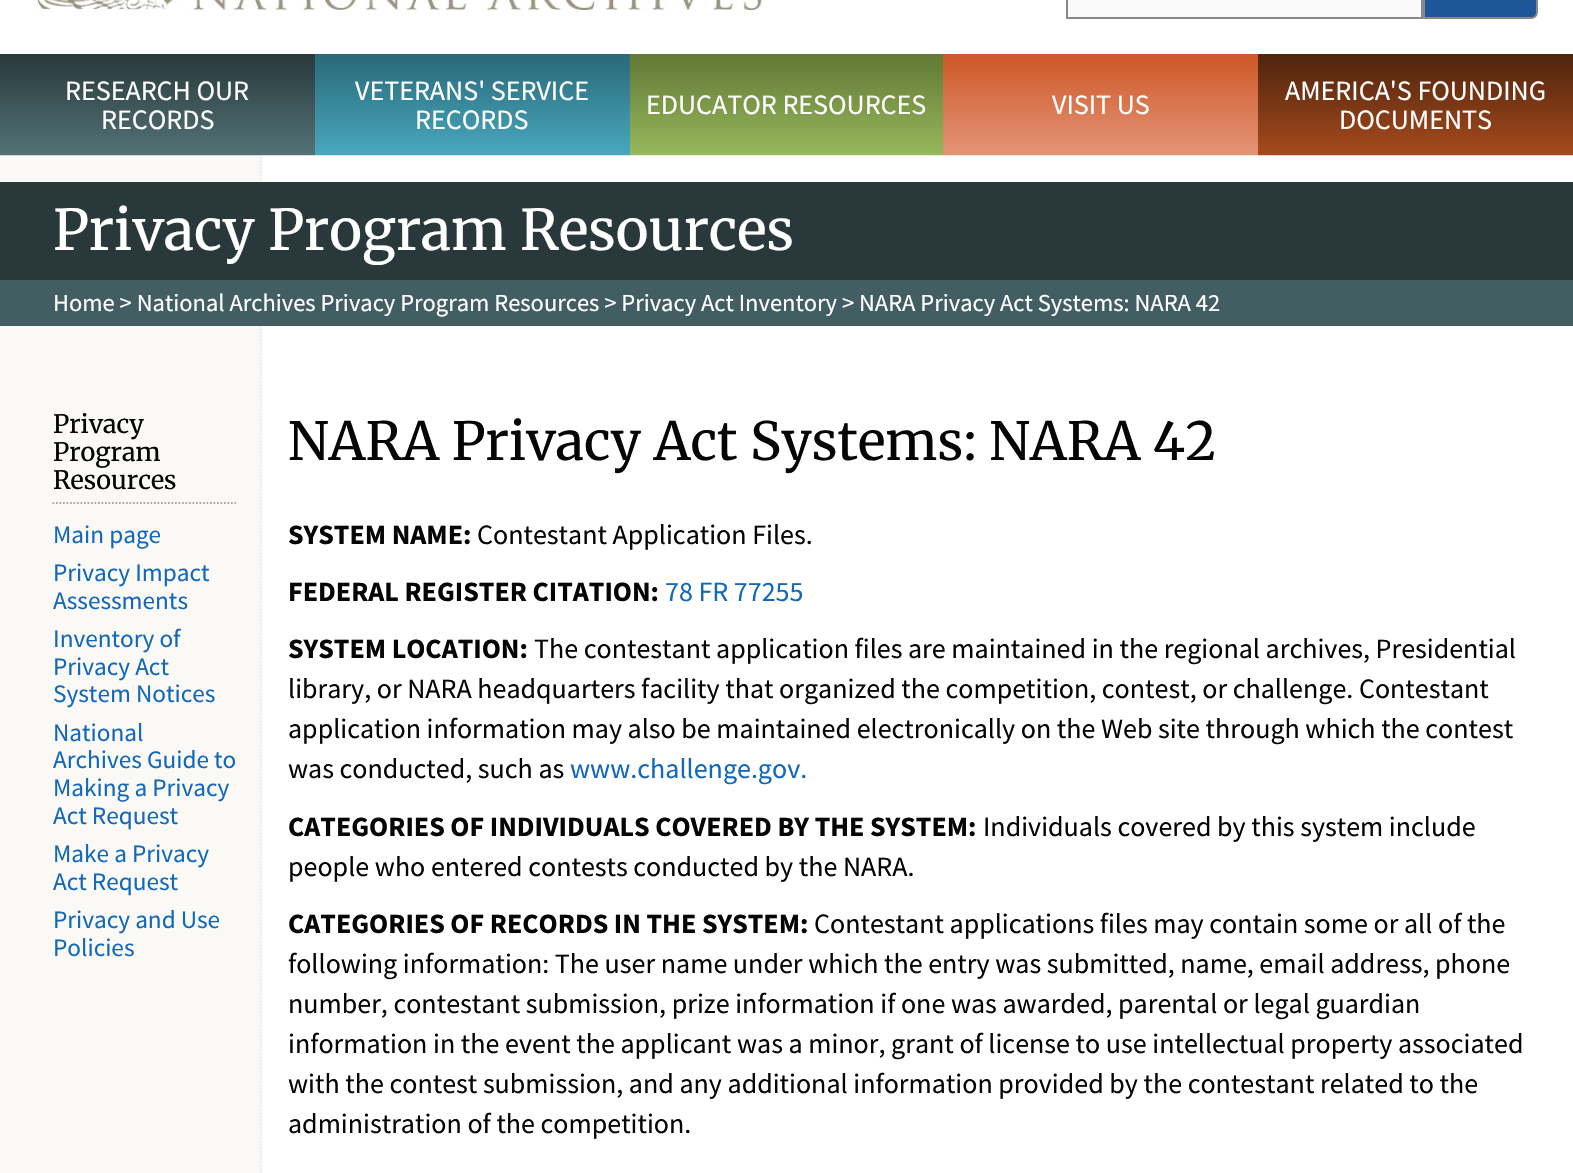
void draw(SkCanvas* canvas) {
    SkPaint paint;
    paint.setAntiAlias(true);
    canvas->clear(0xFFFFFFFF);
    canvas->drawImageRect(SkImages::DeferredFromEncodedData(SkData::MakeFromFileName("img1.png")), SkRect::MakeXYWH(36, 0, 726, 10), SkSamplingOptions());
    paint.setColor(0xFFFAFAFA);
    canvas->drawRect(SkRect::MakeXYWH(1067, -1, 355, 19), paint);
    paint.setStyle(SkPaint::kStroke_Style);
    paint.setStrokeWidth(2);
    paint.setColor(0xFF888888);
    canvas->drawRect(SkRect::MakeXYWH(1067, -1, 355, 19), paint);
    paint.setStyle(SkPaint::kFill_Style);
    paint.setColor(0xFF1E5799);
    canvas->drawPath(SkPathBuilder().moveTo(1424, -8).lineTo(1531, -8).cubicTo(1534.5f, -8, 1537, -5.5f, 1537, -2).lineTo(1537, 12).cubicTo(1537, 15.5f, 1534.5f, 18, 1531, 18).lineTo(1424, 18).close().detach(), paint);
    paint.setStyle(SkPaint::kStroke_Style);
    paint.setColor(0xFF888888);
    canvas->drawPath(SkPathBuilder().moveTo(1424, -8).lineTo(1531, -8).cubicTo(1534.5f, -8, 1537, -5.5f, 1537, -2).lineTo(1537, 12).cubicTo(1537, 15.5f, 1534.5f, 18, 1531, 18).lineTo(1424, 18).close().detach(), paint);
    paint.setStyle(SkPaint::kFill_Style);
    {
        const SkColor colors[] = {0xFF29393B, 0xFF537377};
        const float stops[] = {0, 1};
        const SkPoint ends[] = {{158, 54}, {158, 156}};
        paint.setShader(SkGradientShader::MakeLinear(ends, colors, stops, 2, SkTileMode::kClamp));
        paint.setAlpha(255);
    }
    canvas->drawRect(SkRect::MakeXYWH(0, 54, 315, 102), paint);
    SkFont font1(fontMgr->matchFamilyStyle("Source Sans Pro", SkFontStyle::Normal()), 28);
    font1.setSubpixel(true);
    paint.setShader(nullptr);
    paint.setColor(0xFFFFFFFF);
    canvas->drawString("RESEARCH OUR", 65, 100, font1, paint);
    canvas->drawString("RECORDS", 101, 129, font1, paint);
    {
        const SkColor colors[] = {0xFF2A6978, 0xFF49A8BF};
        const float stops[] = {0, 1};
        const SkPoint ends[] = {{473, 54}, {473, 156}};
        paint.setShader(SkGradientShader::MakeLinear(ends, colors, stops, 2, SkTileMode::kClamp));
        paint.setAlpha(255);
    }
    canvas->drawRect(SkRect::MakeXYWH(315, 54, 315, 102), paint);
    paint.setShader(nullptr);
    paint.setColor(0xFFFFFFFF);
    canvas->drawString("VETERANS' SERVICE", 355, 100, font1, paint);
    canvas->drawString("RECORDS", 415, 129, font1, paint);
    {
        const SkColor colors[] = {0xFF617935, 0xFF97B85C};
        const float stops[] = {0, 1};
        const SkPoint ends[] = {{787, 54}, {787, 156}};
        paint.setShader(SkGradientShader::MakeLinear(ends, colors, stops, 2, SkTileMode::kClamp));
        paint.setAlpha(255);
    }
    canvas->drawRect(SkRect::MakeXYWH(630, 54, 313, 102), paint);
    paint.setShader(nullptr);
    paint.setColor(0xFFFFFFFF);
    canvas->drawString("EDUCATOR RESOURCES", 646, 114, font1, paint);
    {
        const SkColor colors[] = {0xFFCD5728, 0xFFE49677};
        const float stops[] = {0, 1};
        const SkPoint ends[] = {{1101, 54}, {1101, 156}};
        paint.setShader(SkGradientShader::MakeLinear(ends, colors, stops, 2, SkTileMode::kClamp));
        paint.setAlpha(255);
    }
    canvas->drawRect(SkRect::MakeXYWH(943, 54, 315, 102), paint);
    paint.setShader(nullptr);
    paint.setColor(0xFFFFFFFF);
    canvas->drawString("VISIT US", 1052, 114, font1, paint);
    {
        const SkColor colors[] = {0xFF4F240E, 0xFFA64B1D};
        const float stops[] = {0, 1};
        const SkPoint ends[] = {{1416, 54}, {1416, 156}};
        paint.setShader(SkGradientShader::MakeLinear(ends, colors, stops, 2, SkTileMode::kClamp));
        paint.setAlpha(255);
    }
    canvas->drawRect(SkRect::MakeXYWH(1258, 54, 315, 102), paint);
    paint.setShader(nullptr);
    paint.setColor(0xFFFFFFFF);
    canvas->drawString("AMERICA'S FOUNDING", 1285, 100, font1, paint);
    canvas->drawString("DOCUMENTS", 1339, 129, font1, paint);
    canvas->drawImageRect(SkImages::DeferredFromEncodedData(SkData::MakeFromFileName("img2.png")), SkRect::MakeXYWH(0, 155, 1573, 1018), SkSamplingOptions());
    paint.setColor(0xFF29393B);
    canvas->drawRect(SkRect::MakeXYWH(0, 182, 1573, 98), paint);
    SkFont font2(fontMgr->matchFamilyStyle("Merriweather", SkFontStyle(300, SkFontStyle::kNormal_Width, SkFontStyle::kUpright_Slant)), 56);
    font2.setSubpixel(true);
    paint.setColor(0xFFFFFFFF);
    canvas->drawString("Privacy Program Resources", 53, 250, font2, paint);
    paint.setColor(0xFF435E63);
    canvas->drawRect(SkRect::MakeXYWH(0, 280, 1573, 46), paint);
    SkFont font3(fontMgr->matchFamilyStyle("Source Sans Pro", SkFontStyle::Normal()), 24.5f);
    font3.setSubpixel(true);
    paint.setColor(0xFFFFFFFF);
    canvas->drawString("Home > National Archives Privacy Program Resources > Privacy Act Inventory > NARA Privacy Act Systems: NARA 42", 53, 311, font3, paint);
    paint.setStyle(SkPaint::kStroke_Style);
    paint.setStrokeWidth(1.8f);
    paint.setColor(0xFFAAAAAA);
    paint.setPathEffect(SkDashPathEffect::Make({{1.75f, 1.75f}}, 0));
    canvas->drawPath(SkPathBuilder().moveTo(52.5f, 503).lineTo(236, 503).detach(), paint);
    paint.setPathEffect(nullptr);
    SkFont font4(fontMgr->matchFamilyStyle("Merriweather", SkFontStyle(300, SkFontStyle::kNormal_Width, SkFontStyle::kUpright_Slant)), 25.25f);
    font4.setSubpixel(true);
    paint.setStyle(SkPaint::kFill_Style);
    paint.setColor(0xFF050505);
    canvas->drawString("Privacy", 53, 433, font4, paint);
    canvas->drawString("Program", 53, 461, font4, paint);
    canvas->drawString("Resources", 53, 489, font4, paint);
    SkFont font5(fontMgr->matchFamilyStyle("Source Sans Pro", SkFontStyle::Normal()), 25.25f);
    font5.setSubpixel(true);
    paint.setColor(0xFF1368BA);
    canvas->drawString("Main page", 53, 543, font5, paint);
    canvas->drawString("Privacy Impact", 53, 581, font5, paint);
    canvas->drawString("Assessments", 53, 609, font5, paint);
    canvas->drawString("Inventory of", 53, 647, font5, paint);
    canvas->drawString("Privacy Act", 53, 675, font5, paint);
    canvas->drawString("System Notices", 53, 702, font5, paint);
    canvas->drawString("National", 53, 741, font5, paint);
    canvas->drawString("Archives Guide to", 53, 768, font5, paint);
    canvas->drawString("Making a Privacy", 53, 796, font5, paint);
    canvas->drawString("Act Request", 53, 824, font5, paint);
    canvas->drawString("Make a Privacy", 53, 862, font5, paint);
    canvas->drawString("Act Request", 53, 890, font5, paint);
    canvas->drawString("Privacy and Use", 53, 928, font5, paint);
    canvas->drawString("Policies", 53, 956, font5, paint);
    SkFont font6(fontMgr->matchFamilyStyle("Merriweather", SkFontStyle(300, SkFontStyle::kNormal_Width, SkFontStyle::kUpright_Slant)), 52.5f);
    font6.setSubpixel(true);
    paint.setColor(0xFF050505);
    canvas->drawString("NARA Privacy Act Systems: NARA 42", 288, 460, font6, paint);
    SkFont font7(fontMgr->matchFamilyStyle("Source Sans Pro", SkFontStyle::Bold()), 28);
    font7.setSubpixel(true);
    canvas->drawString("SYSTEM NAME:", 288, 544, font7, paint);
    canvas->drawString("Contestant Application Files.", 477, 544, font1, paint);
    canvas->drawString("FEDERAL REGISTER CITATION:", 288, 601, font7, paint);
    paint.setColor(0xFF1368BA);
    canvas->drawString("78 FR 77255", 665, 601, font1, paint);
    paint.setColor(0xFF050505);
    canvas->drawString("SYSTEM LOCATION:", 288, 658, font7, paint);
    canvas->drawString("The contestant application files are maintained in the regional archives, Presidential", 534, 658, font1, paint);
    canvas->drawString("library, or NARA headquarters facility that organized the competition, contest, or challenge. Contestant", 288, 698, font1, paint);
    canvas->drawString("application information may also be maintained electronically on the Web site through which the contest", 288, 738, font1, paint);
    canvas->drawString("was conducted, such as", 288, 778, font1, paint);
    paint.setColor(0xFF1368BA);
    canvas->drawString("www.challenge.gov.", 570, 778, font1, paint);
    paint.setColor(0xFF050505);
    canvas->drawString("CATEGORIES OF INDIVIDUALS COVERED BY THE SYSTEM:", 288, 836, font7, paint);
    canvas->drawString("Individuals covered by this system include", 983, 836, font1, paint);
    canvas->drawString("people who entered contests conducted by the NARA.", 288, 876, font1, paint);
    canvas->drawString("CATEGORIES OF RECORDS IN THE SYSTEM:", 288, 933, font7, paint);
    canvas->drawString("Contestant applications files may contain some or all of the", 814, 933, font1, paint);
    canvas->drawString("following information: The user name under which the entry was submitted, name, email address, phone", 288, 973, font1, paint);
    canvas->drawString("number, contestant submission, prize information if one was awarded, parental or legal guardian", 288, 1013, font1, paint);
    canvas->drawString("information in the event the applicant was a minor, grant of license to use intellectual property associated", 288, 1053, font1, paint);
    canvas->drawString("with the contest submission, and any additional information provided by the contestant related to the", 288, 1093, font1, paint);
    canvas->drawString("administration of the competition.", 288, 1133, font1, paint);
}
